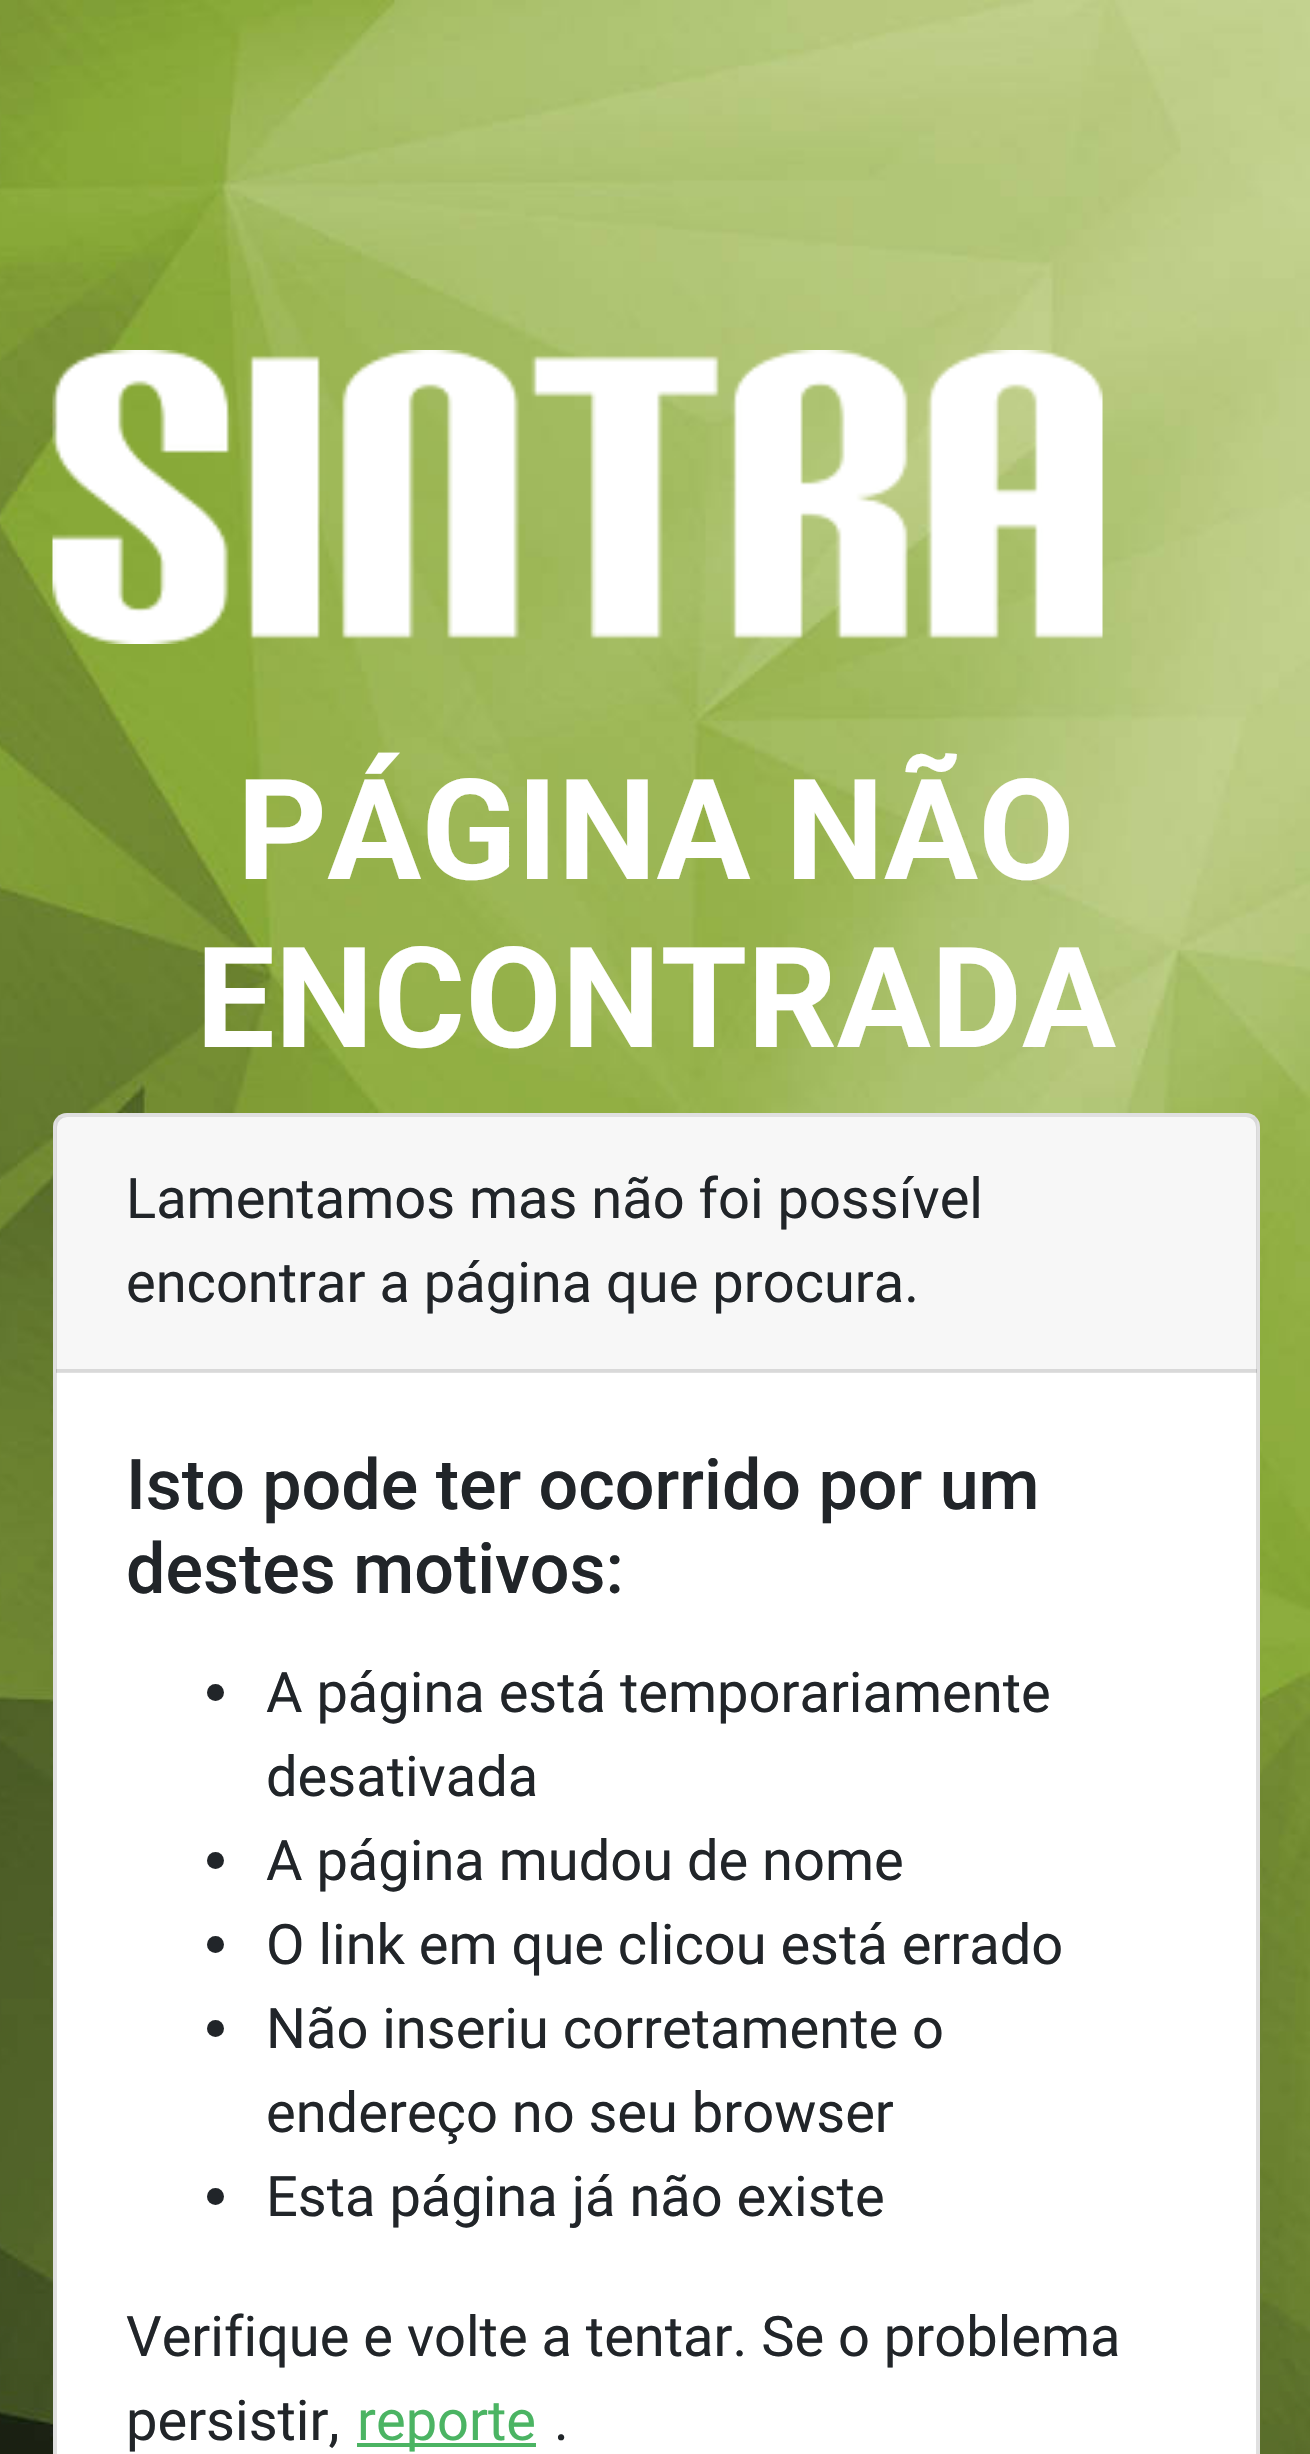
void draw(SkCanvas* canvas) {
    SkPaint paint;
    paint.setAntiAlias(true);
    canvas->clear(0xFFFFFFFF);
    canvas->drawImageRect(SkImages::DeferredFromEncodedData(SkData::MakeFromFileName("img1.png")), SkRect::MakeXYWH(0, 0, 1310, 2454), SkSamplingOptions());
    canvas->drawImageRect(SkImages::DeferredFromEncodedData(SkData::MakeFromFileName("img2.png")), SkRect::MakeXYWH(52, 350, 1051, 294), SkSamplingOptions());
    SkFont font1(fontMgr->matchFamilyStyle("Roboto", SkFontStyle::Bold()), 140);
    font1.setSubpixel(true);
    paint.setColor(0xFFFFFFFF);
    canvas->drawString("PÁGINA NÃO", 237, 879, font1, paint);
    canvas->drawString("ENCONTRADA", 196, 1047, font1, paint);
    canvas->drawRoundRect(SkRect::MakeXYWH(53, 1113, 1207, 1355), 14, 14, paint);
    paint.setStyle(SkPaint::kStroke_Style);
    paint.setStrokeWidth(4);
    paint.setColor(0x1F000000);
    canvas->drawRoundRect(SkRect::MakeXYWH(55, 1115, 1203, 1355), 12, 12, paint);
    paint.setStyle(SkPaint::kFill_Style);
    paint.setColor(0x08000000);
    canvas->drawRect(SkRect::MakeXYWH(56, 1117, 1201, 255), paint);
    paint.setColor(0x1F000000);
    canvas->drawRect(SkRect::MakeXYWH(56, 1369, 1201, 4), paint);
    SkFont font2(fontMgr->matchFamilyStyle("Roboto", SkFontStyle::Normal()), 56);
    font2.setSubpixel(true);
    paint.setColor(0xFF212529);
    canvas->drawString("Lamentamos mas não foi possível", 126, 1218, font2, paint);
    canvas->drawString("encontrar a página que procura.", 126, 1302, font2, paint);
    SkFont font3(fontMgr->matchFamilyStyle("Roboto", SkFontStyle(500, SkFontStyle::kNormal_Width, SkFontStyle::kUpright_Slant)), 70);
    font3.setSubpixel(true);
    canvas->drawString("Isto pode ter ocorrido por um", 126, 1509, font3, paint);
    canvas->drawString("destes motivos:", 126, 1593, font3, paint);
    canvas->drawCircle(215.5f, 1692.5f, 8.5f, paint);
    canvas->drawString("A página está temporariamente", 266, 1712, font2, paint);
    canvas->drawString("desativada", 266, 1796, font2, paint);
    canvas->drawCircle(215.5f, 1860.5f, 8.5f, paint);
    canvas->drawString("A página mudou de nome", 266, 1880, font2, paint);
    canvas->drawCircle(215.5f, 1944.5f, 8.5f, paint);
    canvas->drawString("O link em que clicou está errado", 266, 1964, font2, paint);
    canvas->drawCircle(215.5f, 2028.5f, 8.5f, paint);
    canvas->drawString("Não inseriu corretamente o", 266, 2048, font2, paint);
    canvas->drawString("endereço no seu browser", 266, 2132, font2, paint);
    canvas->drawCircle(215.5f, 2196.5f, 8.5f, paint);
    canvas->drawString("Esta página já não existe", 266, 2216, font2, paint);
    canvas->drawString("Verifique e volte a tentar. Se o problema", 126, 2356, font2, paint);
    canvas->drawString("persistir,", 126, 2440, font2, paint);
    paint.setColor(0xFF4BB463);
    canvas->drawRect(SkRect::MakeXYWH(357, 2443, 179, 4), paint);
    canvas->drawString("reporte", 357, 2440, font2, paint);
    paint.setColor(0xFF212529);
    canvas->drawString(".", 554, 2440, font2, paint);
}
